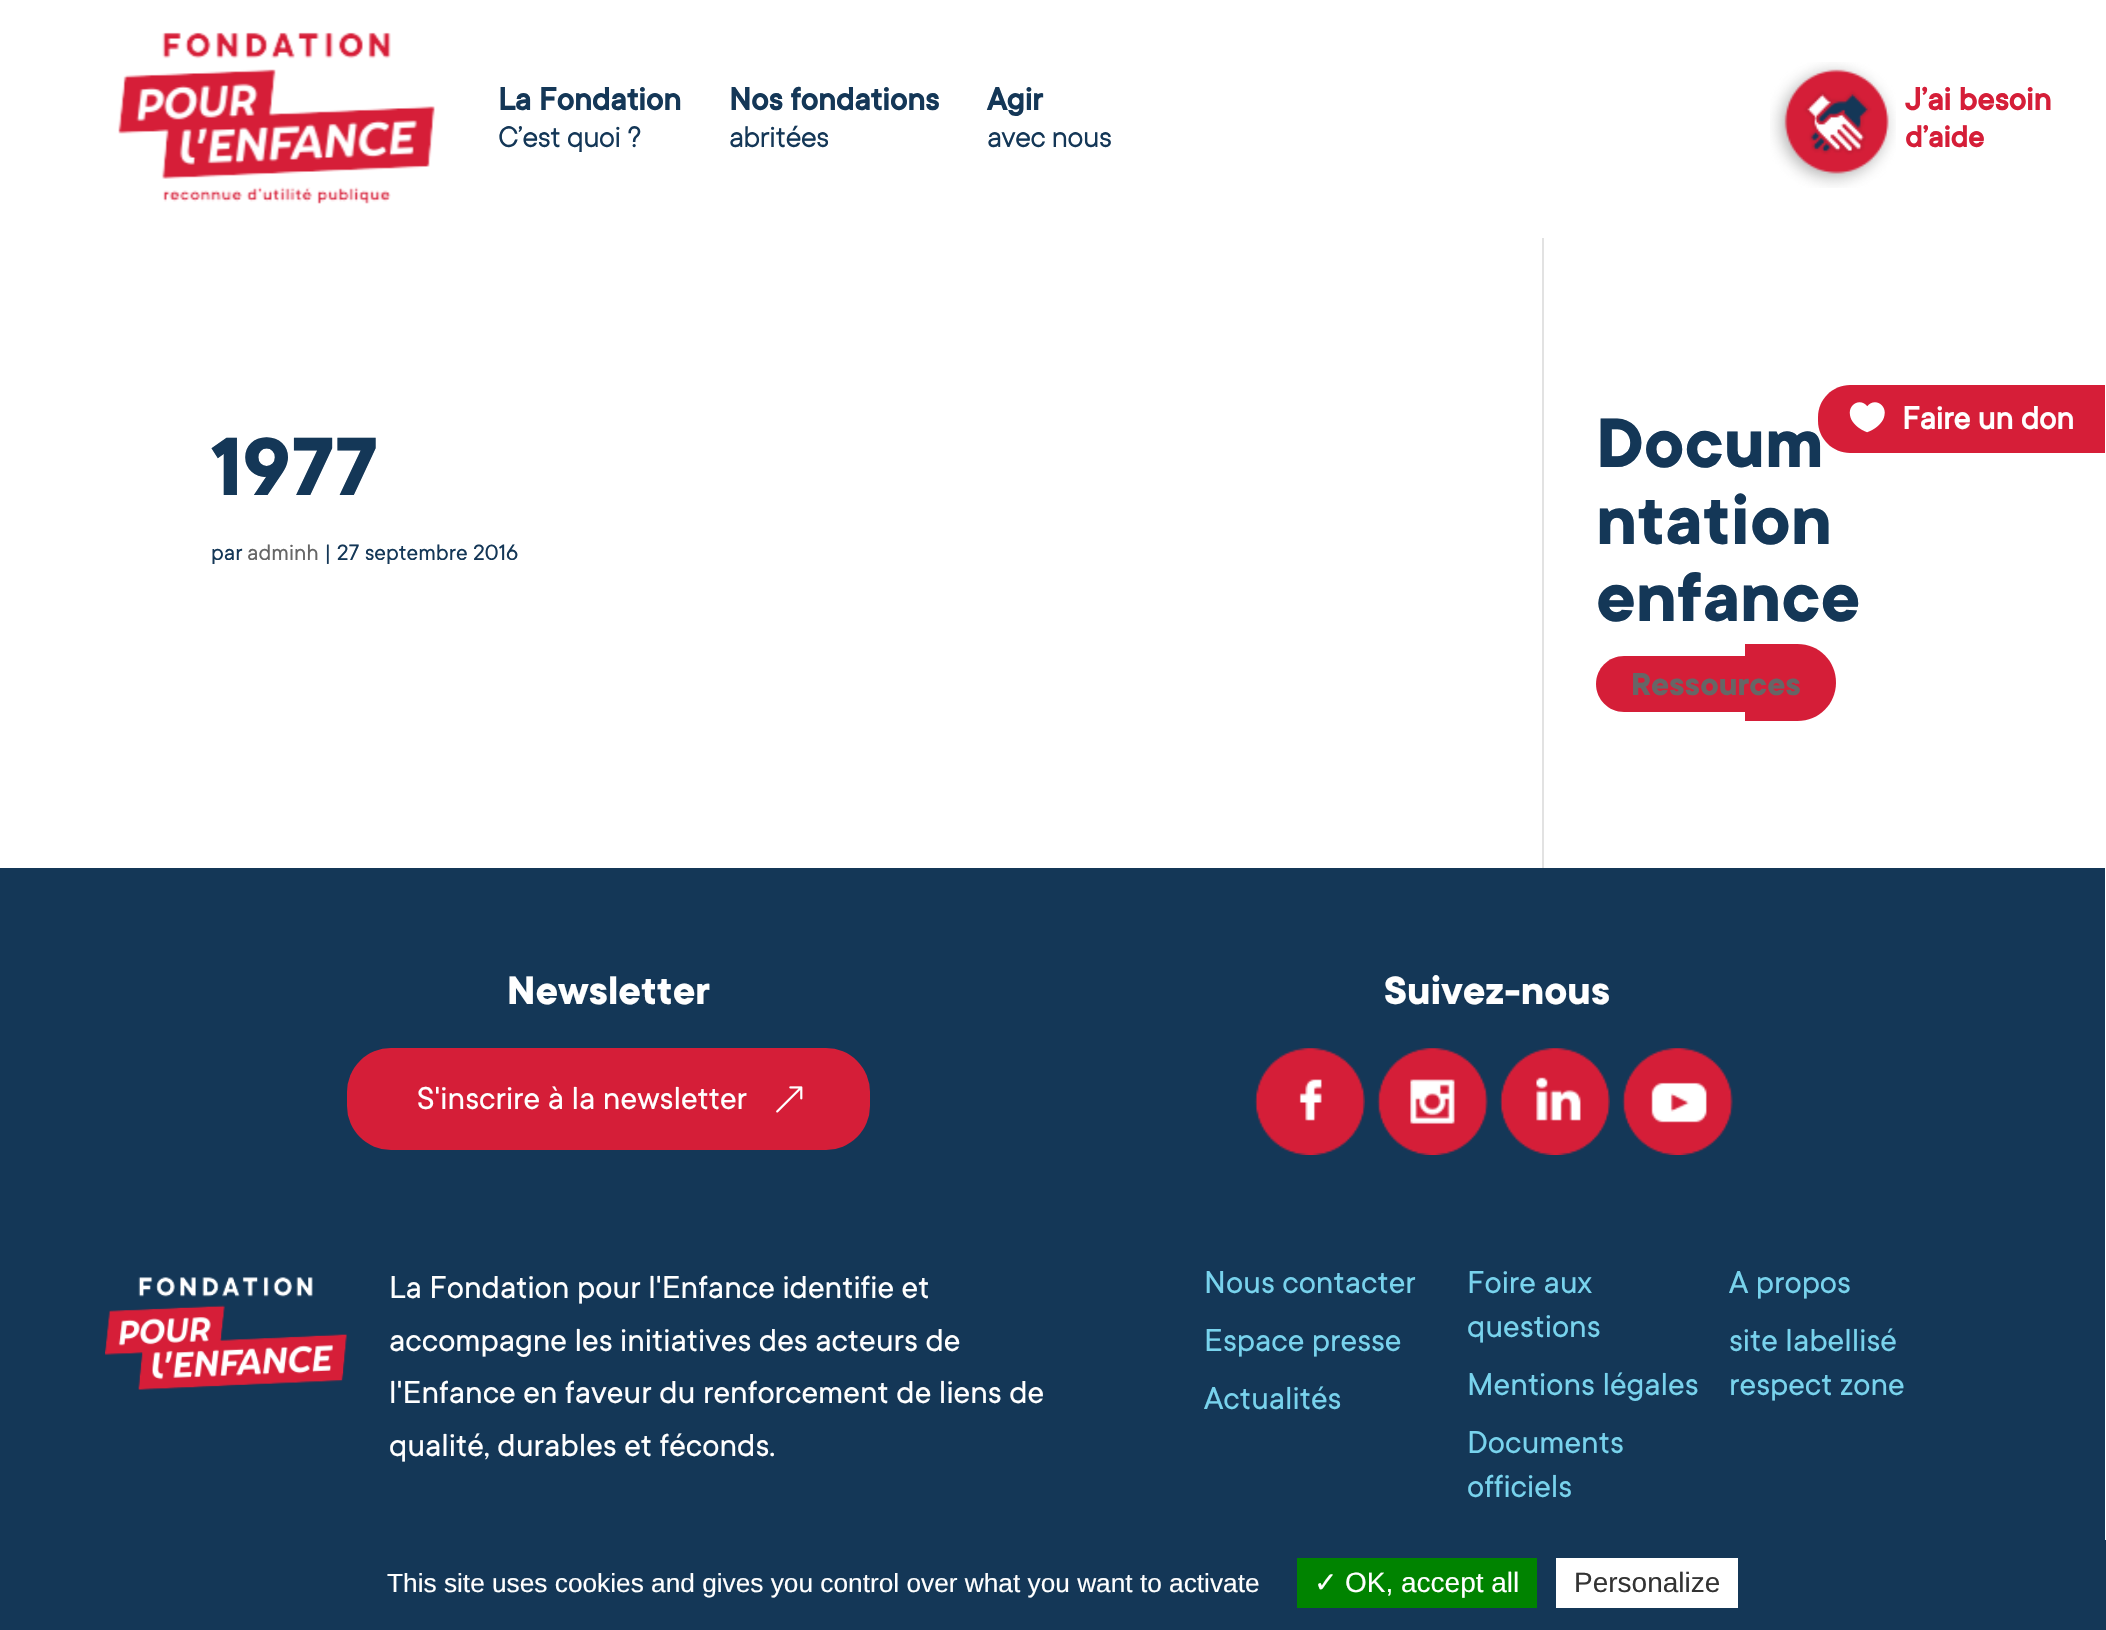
void draw(SkCanvas* canvas) {
    SkPaint paint;
    paint.setAntiAlias(true);
    canvas->clear(0xFFFFFFFF);
    paint.setColor(0xFFE2E2E2);
    canvas->drawRect(SkRect::MakeXYWH(1542, 235, 2, 633), paint);
    paint.setColor(0xFFFFFFFF);
    canvas->drawRect(SkRect::MakeXYWH(1542, 235, 2, 3), paint);
    canvas->drawImageRect(SkImages::DeferredFromEncodedData(SkData::MakeFromFileName("img1.png")), SkRect::MakeXYWH(118, 32, 317, 172), SkSamplingOptions());
    SkFont font1(fontMgr->matchFamilyStyle("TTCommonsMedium", SkFontStyle::Bold()), 35);
    font1.setSubpixel(true);
    paint.setColor(0xFF143757);
    canvas->drawString("La Fondation", 498, 110, font1, paint);
    SkFont font2(fontMgr->matchFamilyStyle("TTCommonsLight", SkFontStyle::Bold()), 31.5f);
    font2.setSubpixel(true);
    canvas->drawString("C’est quoi ?", 498, 147, font2, paint);
    canvas->drawString("Nos fondations", 729, 110, font1, paint);
    canvas->drawString("abritées", 729, 147, font2, paint);
    canvas->drawString("Agir", 987, 110, font1, paint);
    canvas->drawString("avec nous", 987, 147, font2, paint);
    canvas->drawImageRect(SkImages::DeferredFromEncodedData(SkData::MakeFromFileName("img2.png")), SkRect::MakeXYWH(1770, 62, 126, 126), SkSamplingOptions());
    paint.setColor(0xFFD51E38);
    canvas->drawString("J’ai besoin", 1905, 110, font1, paint);
    SkFont font3(fontMgr->matchFamilyStyle("TTCommonsMedium", SkFontStyle::Bold()), 33);
    font3.setSubpixel(true);
    canvas->drawString("d’aide", 1905, 147, font3, paint);
    SkFont font4(fontMgr->matchFamilyStyle("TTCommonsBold", SkFontStyle::Normal()), 91);
    font4.setSubpixel(true);
    paint.setColor(0xFF143757);
    canvas->drawString("1977", 211, 495, font4, paint);
    SkFont font5(fontMgr->matchFamilyStyle("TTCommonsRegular", SkFontStyle::Normal()), 24.5f);
    font5.setSubpixel(true);
    canvas->drawString("par", 211, 560, font5, paint);
    paint.setColor(0xFF666666);
    canvas->drawString("adminh", 247, 560, font5, paint);
    paint.setColor(0xFF143757);
    canvas->drawString("| 27 septembre 2016", 324, 560, font5, paint);
    SkFont font6(fontMgr->matchFamilyStyle("TTCommonsBold", SkFontStyle::Normal()), 77);
    font6.setSubpixel(true);
    canvas->drawString("Docum", 1596, 467, font6, paint);
    canvas->drawString("ntation", 1596, 544, font6, paint);
    canvas->drawString("enfance", 1596, 621, font6, paint);
    paint.setColor(0xFFD51E38);
    canvas->drawPath(SkPathBuilder().moveTo(1624, 656).lineTo(1801, 656).lineTo(1801, 712).lineTo(1624, 712).cubicTo(1608.5f, 712, 1596, 699.5f, 1596, 684).cubicTo(1596, 668.5f, 1608.5f, 656, 1624, 656).close().detach(), paint);
    canvas->drawPath(SkPathBuilder().moveTo(1745, 644).lineTo(1797.5f, 644).cubicTo(1819, 644, 1836, 661, 1836, 682.5f).cubicTo(1836, 704, 1819, 721, 1797.5f, 721).lineTo(1745, 721).close().detach(), paint);
    SkFont font7(fontMgr->matchFamilyStyle("TTCommonsBold", SkFontStyle::Normal()), 35);
    font7.setSubpixel(true);
    paint.setColor(0xFF666666);
    canvas->drawString("Ressources", 1631, 695, font7, paint);
    paint.setColor(0xFF143757);
    canvas->drawRect(SkRect::MakeXYWH(0, 868, 2105, 672), paint);
    SkFont font8(fontMgr->matchFamilyStyle("TTCommonsBold", SkFontStyle::Normal()), 43.75f);
    font8.setSubpixel(true);
    paint.setColor(0xFFFFFFFF);
    canvas->drawString("Newsletter", 507, 1004, font8, paint);
    paint.setColor(0xFFD51E38);
    canvas->drawRoundRect(SkRect::MakeXYWH(347, 1048, 523, 102), 44, 44, paint);
    SkFont font9(fontMgr->matchFamilyStyle("TTCommonsRegular", SkFontStyle::Normal()), 35);
    font9.setSubpixel(true);
    paint.setColor(0xFFFFFFFF);
    canvas->drawString("S'inscrire à la newsletter", 417, 1109, font9, paint);
    canvas->drawImageRect(SkImages::DeferredFromEncodedData(SkData::MakeFromFileName("img3.png")), SkRect::MakeXYWH(776, 1086, 27, 27), SkSamplingOptions());
    canvas->drawString("Suivez-nous", 1384, 1004, font8, paint);
    canvas->drawImageRect(SkImages::DeferredFromEncodedData(SkData::MakeFromFileName("img4.png")), SkRect::MakeXYWH(1254, 1048, 111, 107), SkSamplingOptions());
    canvas->drawImageRect(SkImages::DeferredFromEncodedData(SkData::MakeFromFileName("img5.png")), SkRect::MakeXYWH(1377, 1048, 111, 107), SkSamplingOptions());
    canvas->drawImageRect(SkImages::DeferredFromEncodedData(SkData::MakeFromFileName("img6.png")), SkRect::MakeXYWH(1499, 1048, 111, 107), SkSamplingOptions());
    canvas->drawImageRect(SkImages::DeferredFromEncodedData(SkData::MakeFromFileName("img7.png")), SkRect::MakeXYWH(1622, 1048, 111, 107), SkSamplingOptions());
    canvas->drawImageRect(SkImages::DeferredFromEncodedData(SkData::MakeFromFileName("img8.png")), SkRect::MakeXYWH(105, 1277, 242, 113), SkSamplingOptions());
    canvas->drawString("La Fondation pour l'Enfance identifie et", 389, 1298, font9, paint);
    canvas->drawString("accompagne les initiatives des acteurs de", 389, 1351, font9, paint);
    canvas->drawString("l'Enfance en faveur du renforcement de liens de", 389, 1403, font9, paint);
    canvas->drawString("qualité, durables et féconds.", 389, 1456, font9, paint);
    paint.setColor(0xFF78D3ED);
    canvas->drawString("Nous contacter", 1204, 1293, font9, paint);
    canvas->drawString("Espace presse", 1204, 1351, font9, paint);
    canvas->drawString("Actualités", 1204, 1409, font9, paint);
    canvas->drawString("Foire aux", 1467, 1293, font9, paint);
    canvas->drawString("questions", 1467, 1337, font9, paint);
    canvas->drawString("Mentions légales", 1467, 1395, font9, paint);
    canvas->drawString("Documents", 1467, 1453, font9, paint);
    canvas->drawString("officiels", 1467, 1497, font9, paint);
    canvas->drawString("A propos", 1729, 1293, font9, paint);
    canvas->drawString("site labellisé", 1729, 1351, font9, paint);
    canvas->drawString("respect zone", 1729, 1395, font9, paint);
    paint.setColor(0xFFD61E38);
    canvas->drawPath(SkPathBuilder().moveTo(1850, 385).lineTo(2105, 385).lineTo(2105, 453).lineTo(1850, 453).cubicTo(1832.5f, 453, 1818, 438.5f, 1818, 421).lineTo(1818, 417).cubicTo(1818, 399.5f, 1832.5f, 385, 1850, 385).close().detach(), paint);
    canvas->drawImageRect(SkImages::DeferredFromEncodedData(SkData::MakeFromFileName("img9.png")), SkRect::MakeXYWH(1849, 402, 36, 31), SkSamplingOptions());
    SkFont font10(fontMgr->matchFamilyStyle("TTCommonsRegular", SkFontStyle::Bold()), 35);
    font10.setSubpixel(true);
    paint.setColor(0xFFFFFFFF);
    canvas->drawString("Faire un don", 1902, 429, font10, paint);
    paint.setColor(0xFF143757);
    canvas->drawRect(SkRect::MakeXYWH(0, 1540, 2106, 90), paint);
    SkFont font11(fontMgr->matchFamilyStyle("Liberation Sans", SkFontStyle::Normal()), 26.25f);
    font11.setSubpixel(true);
    paint.setColor(0xFFFFFFFF);
    canvas->drawString("This site uses cookies and gives you control over what you want to activate", 387, 1592, font11, paint);
    paint.setColor(0xFF008300);
    canvas->drawRect(SkRect::MakeXYWH(1297, 1558, 240, 50), paint);
    SkFont font12(fontMgr->matchFamilyStyle("DejaVu Sans", SkFontStyle::Normal()), 28);
    font12.setSubpixel(true);
    paint.setColor(0xFFFFFFFF);
    canvas->drawString("✓", 1314, 1592, font12, paint);
    SkFont font13(fontMgr->matchFamilyStyle("Liberation Sans", SkFontStyle::Normal()), 28);
    font13.setSubpixel(true);
    canvas->drawString("OK, accept all", 1345, 1592, font13, paint);
    canvas->drawRect(SkRect::MakeXYWH(1556, 1558, 182, 50), paint);
    paint.setColor(0xFF333333);
    canvas->drawString("Personalize", 1574, 1592, font13, paint);
}
